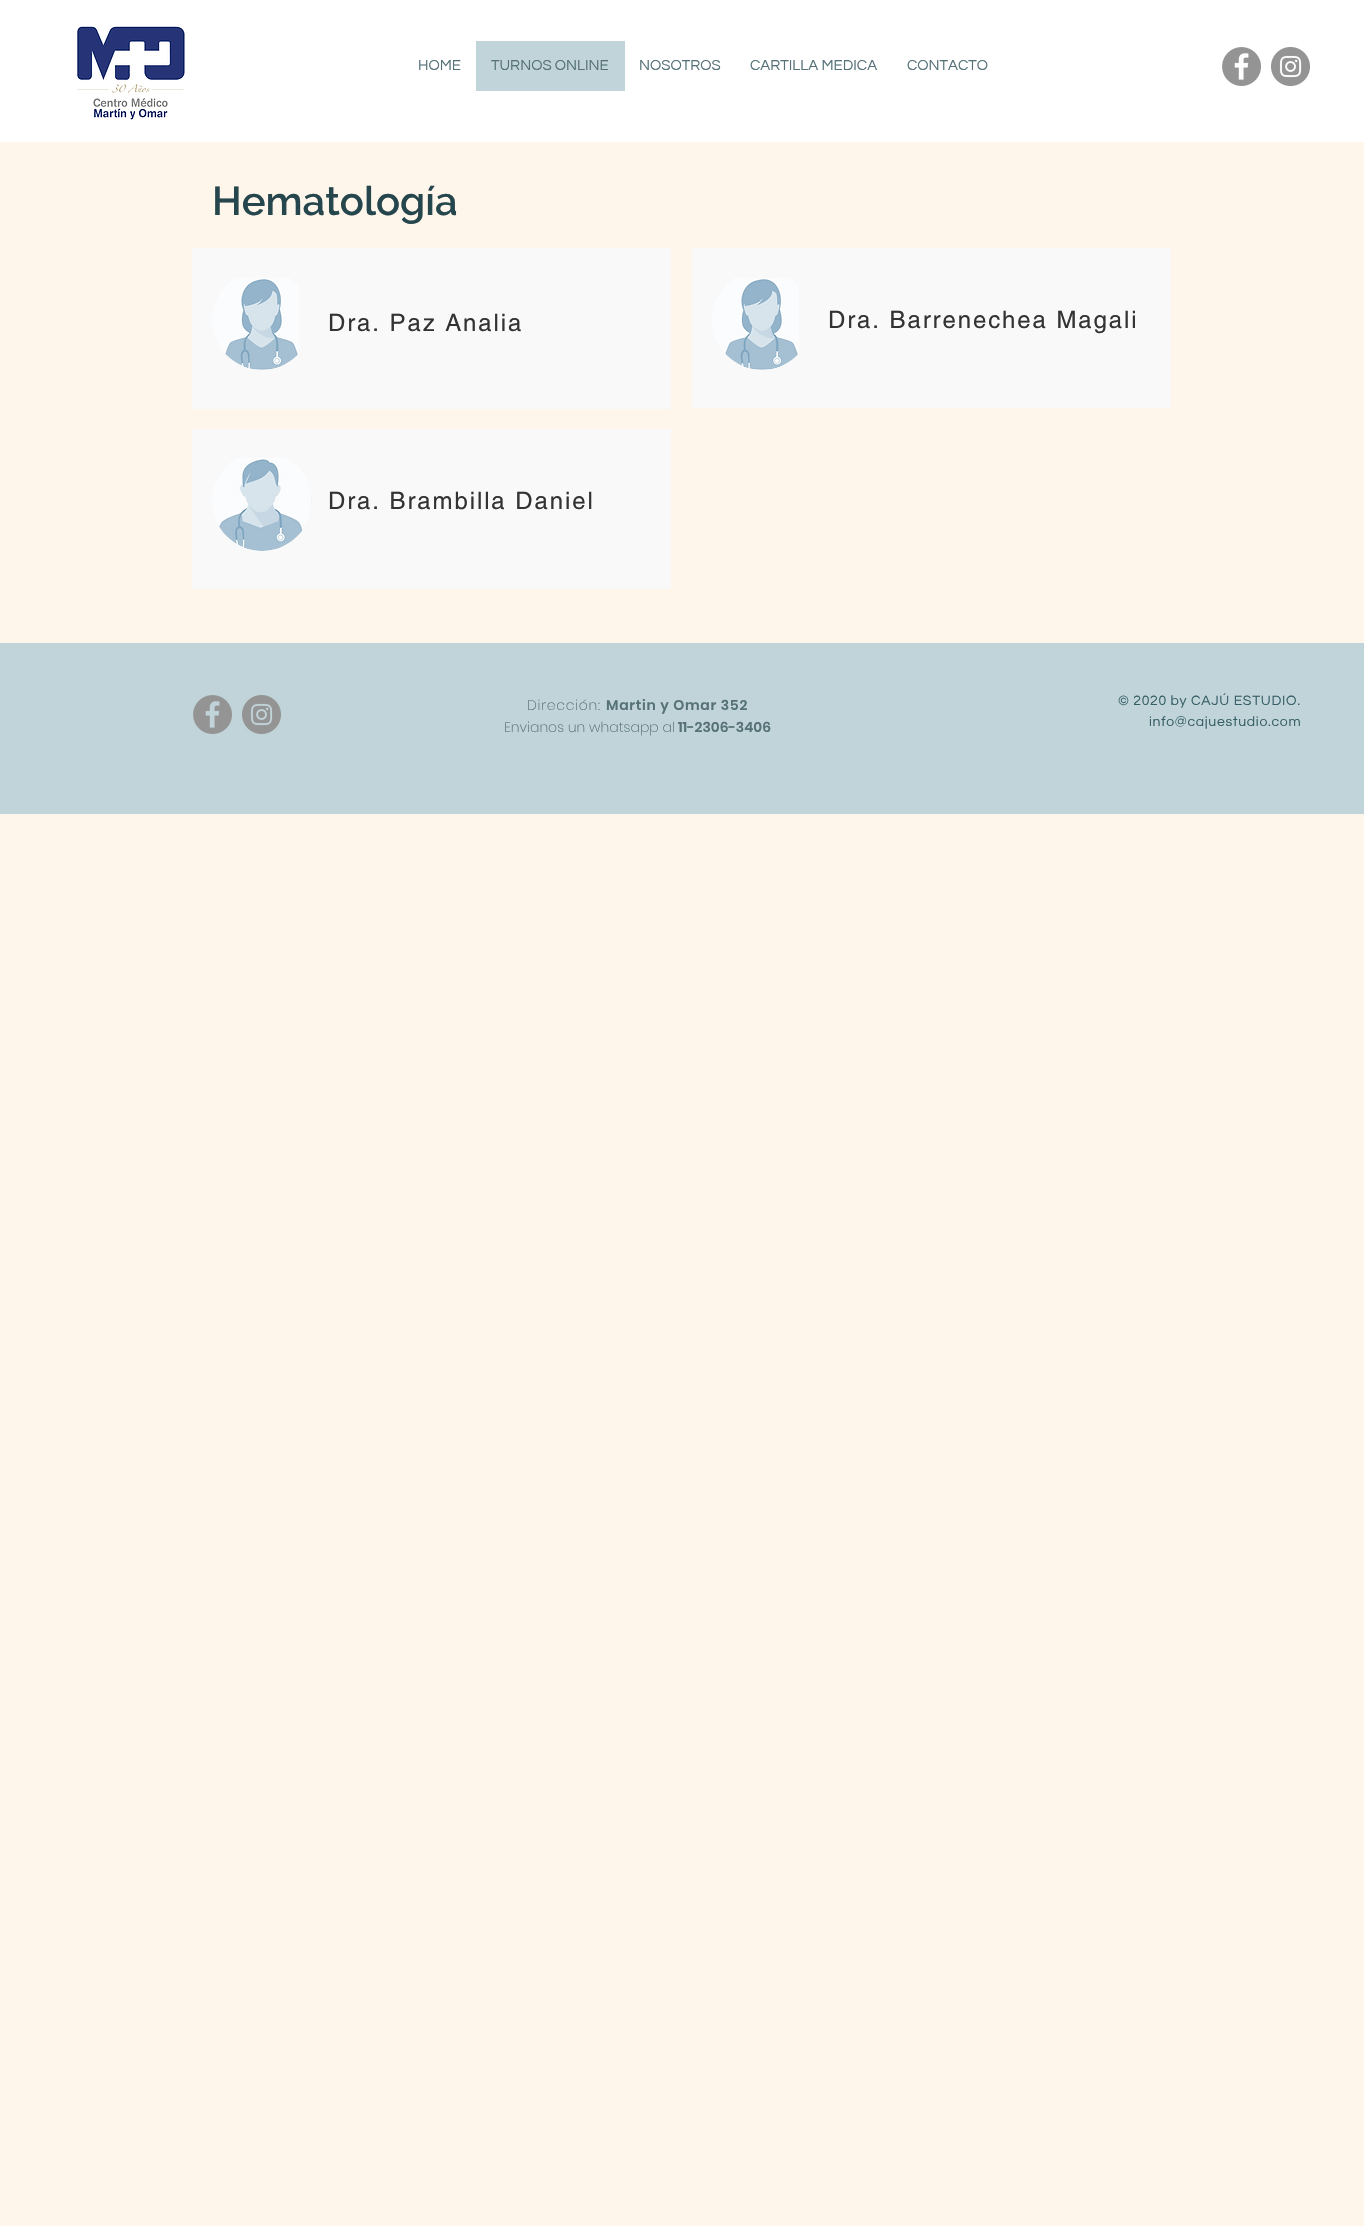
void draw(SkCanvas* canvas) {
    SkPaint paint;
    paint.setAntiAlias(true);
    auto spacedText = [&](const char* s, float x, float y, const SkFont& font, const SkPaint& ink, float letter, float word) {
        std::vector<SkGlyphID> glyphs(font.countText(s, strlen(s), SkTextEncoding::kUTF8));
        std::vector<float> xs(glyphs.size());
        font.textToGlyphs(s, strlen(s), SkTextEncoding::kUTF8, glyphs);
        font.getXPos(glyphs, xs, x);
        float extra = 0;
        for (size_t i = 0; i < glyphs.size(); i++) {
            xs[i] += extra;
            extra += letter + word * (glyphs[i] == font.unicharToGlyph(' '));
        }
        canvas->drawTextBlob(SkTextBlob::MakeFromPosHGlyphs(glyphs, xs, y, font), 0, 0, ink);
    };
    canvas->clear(0xFFFFF6EB);
    paint.setColor(0xFFFFFFFF);
    canvas->drawRect(SkRect::MakeXYWH(0, 0, 1364, 142), paint);
    canvas->drawImageRect(SkImages::DeferredFromEncodedData(SkData::MakeFromFileName("img1.png")), SkRect::MakeXYWH(77, 26, 108, 96), SkSamplingOptions());
    paint.setColor(0xFFC1D4D9);
    canvas->drawRect(SkRect::MakeXYWH(476, 41, 149, 50), paint);
    canvas->drawImageRect(SkImages::DeferredFromEncodedData(SkData::MakeFromFileName("img2.png")), SkRect::MakeXYWH(1222, 47, 39, 39), SkSamplingOptions());
    canvas->drawImageRect(SkImages::DeferredFromEncodedData(SkData::MakeFromFileName("img3.png")), SkRect::MakeXYWH(1271, 47, 39, 39), SkSamplingOptions());
    SkFont font1(fontMgr->matchFamilyStyle("Questrial", SkFontStyle::Normal()), 15);
    font1.setSubpixel(true);
    paint.setColor(0xFF567278);
    canvas->drawString("HOME", 418, 70, font1, paint);
    canvas->drawString("TURNOS ONLINE", 491, 70, font1, paint);
    canvas->drawString("NOSOTROS", 639, 70, font1, paint);
    canvas->drawString("CARTILLA MEDICA", 750, 70, font1, paint);
    canvas->drawString("CONTACTO", 907, 70, font1, paint);
    SkFont font2(fontMgr->matchFamilyStyle("Raleway", SkFontStyle(600, SkFontStyle::kNormal_Width, SkFontStyle::kUpright_Slant)), 40);
    font2.setSubpixel(true);
    paint.setColor(0xFF26464D);
    canvas->drawString("Hematología", 212, 215, font2, paint);
    paint.setColor(0xFFF9F9F9);
    canvas->drawRect(SkRect::MakeXYWH(192, 248, 479, 161), paint);
    canvas->drawImageRect(SkImages::DeferredFromEncodedData(SkData::MakeFromFileName("img4.png")), SkRect::MakeXYWH(212, 278, 87, 92), SkSamplingOptions());
    SkFont font3(fontMgr->matchFamilyStyle("helvetica", SkFontStyle::Normal()), 24);
    font3.setSubpixel(true);
    paint.setColor(0xFF333333);
    spacedText("Dra. Paz Analia", 328, 331, font3, paint, 1.9f, 0);
    paint.setColor(0xFFF9F9F9);
    canvas->drawRect(SkRect::MakeXYWH(192, 429, 479, 160), paint);
    canvas->drawImageRect(SkImages::DeferredFromEncodedData(SkData::MakeFromFileName("img5.png")), SkRect::MakeXYWH(212, 458, 100, 93), SkSamplingOptions());
    paint.setColor(0xFF333333);
    spacedText("Dra. Brambilla Daniel", 328, 509, font3, paint, 1.9f, 0);
    paint.setColor(0xFFF9F9F9);
    canvas->drawRect(SkRect::MakeXYWH(692, 248, 479, 160), paint);
    canvas->drawImageRect(SkImages::DeferredFromEncodedData(SkData::MakeFromFileName("img4.png")), SkRect::MakeXYWH(712, 278, 87, 92), SkSamplingOptions());
    paint.setColor(0xFF333333);
    spacedText("Dra. Barrenechea Magali", 828, 328, font3, paint, 1.9f, 0);
    paint.setColor(0xFFC1D4D9);
    canvas->drawRect(SkRect::MakeXYWH(0, 643, 1364, 171), paint);
    SkFont font4(fontMgr->matchFamilyStyle("Poppins", SkFontStyle(200, SkFontStyle::kNormal_Width, SkFontStyle::kUpright_Slant)), 14);
    font4.setSubpixel(true);
    paint.setColor(0xFF567278);
    spacedText("Dirección:", 527, 710, font4, paint, 0.7f, 0);
    SkFont font5(fontMgr->matchFamilyStyle("Poppins", SkFontStyle(600, SkFontStyle::kNormal_Width, SkFontStyle::kUpright_Slant)), 14);
    font5.setSubpixel(true);
    spacedText("Martin y Omar 352", 606, 710, font5, paint, 0.7f, 0);
    canvas->drawString("Envianos un whatsapp al", 504, 732, font4, paint);
    canvas->drawString("11-2306-3406", 678, 732, font5, paint);
    canvas->drawImageRect(SkImages::DeferredFromEncodedData(SkData::MakeFromFileName("img6.png")), SkRect::MakeXYWH(193, 695, 39, 39), SkSamplingOptions());
    canvas->drawImageRect(SkImages::DeferredFromEncodedData(SkData::MakeFromFileName("img7.png")), SkRect::MakeXYWH(242, 695, 39, 39), SkSamplingOptions());
    SkFont font6(fontMgr->matchFamilyStyle("Questrial", SkFontStyle::Normal()), 14);
    font6.setSubpixel(true);
    paint.setColor(0xFF365E66);
    spacedText("© 2020 by CAJÚ ESTUDIO.", 1118, 705, font6, paint, 0.7f, 0);
    spacedText("info@cajuestudio.com", 1149, 726, font6, paint, 0.7f, 0);
}
